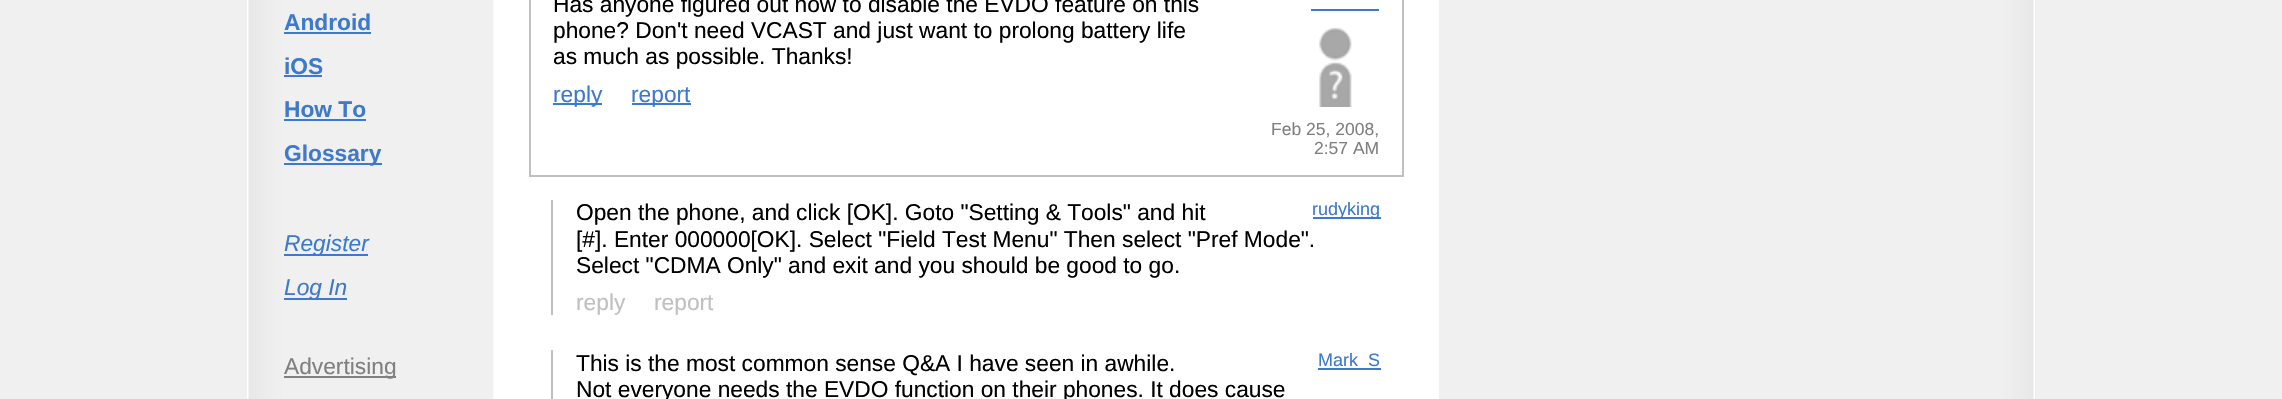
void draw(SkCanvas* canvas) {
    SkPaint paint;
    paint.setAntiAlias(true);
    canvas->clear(0xFFF0F0F0);
    canvas->drawImageRect(SkImages::DeferredFromEncodedData(SkData::MakeFromFileName("img1.png")), SkRect::MakeXYWH(247, 0, 1788, 399), SkSamplingOptions());
    SkFont font1(fontMgr->matchFamilyStyle("Arimo", SkFontStyle::Bold()), 22.75f);
    font1.setSubpixel(true);
    paint.setColor(0xFF3D79CC);
    canvas->drawString("Android", 284, 30, font1, paint);
    canvas->drawRect(SkRect::MakeXYWH(284, 32, 87, 2), paint);
    canvas->drawString("iOS", 284, 74, font1, paint);
    canvas->drawRect(SkRect::MakeXYWH(284, 75, 38, 2), paint);
    canvas->drawString("How To", 284, 117, font1, paint);
    canvas->drawRect(SkRect::MakeXYWH(284, 119, 82, 2), paint);
    canvas->drawRect(SkRect::MakeXYWH(284, 163, 98, 2), paint);
    canvas->drawString("Glossary", 284, 161, font1, paint);
    canvas->drawRect(SkRect::MakeXYWH(284, 254, 84, 2), paint);
    SkFont font2(fontMgr->matchFamilyStyle("Arimo", SkFontStyle::Italic()), 22.75f);
    font2.setSubpixel(true);
    canvas->drawString("Register", 284, 251, font2, paint);
    canvas->drawRect(SkRect::MakeXYWH(284, 298, 63, 2), paint);
    canvas->drawString("Log In", 284, 295, font2, paint);
    paint.setColor(0xFF808080);
    canvas->drawRect(SkRect::MakeXYWH(284, 376, 112, 2), paint);
    SkFont font3(fontMgr->matchFamilyStyle("Arimo", SkFontStyle::Normal()), 22.75f);
    font3.setSubpixel(true);
    canvas->drawString("Advertising", 284, 374, font3, paint);
    paint.setColor(0xFFFFFFFF);
    canvas->drawRect(SkRect::MakeXYWH(1438, 0, 1, 399), paint);
    paint.setStyle(SkPaint::kStroke_Style);
    paint.setStrokeWidth(2);
    paint.setColor(0xFFC0C0C0);
    canvas->drawRect(SkRect::MakeXYWH(530, -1, 873, 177), paint);
    paint.setStyle(SkPaint::kFill_Style);
    paint.setColor(0xFF000000);
    canvas->drawString("Has anyone figured out how to disable the EVDO feature on this", 553, 12, font3, paint);
    canvas->drawString("phone? Don't need VCAST and just want to prolong battery life", 553, 38, font3, paint);
    canvas->drawString("as much as possible. Thanks!", 553, 64, font3, paint);
    paint.setColor(0xFF3D79CC);
    canvas->drawRect(SkRect::MakeXYWH(553, 103, 49, 2), paint);
    canvas->drawString("reply", 553, 102, font3, paint);
    canvas->drawRect(SkRect::MakeXYWH(632, 103, 59, 2), paint);
    canvas->drawString("report", 631, 102, font3, paint);
    canvas->drawRect(SkRect::MakeXYWH(1311, 9, 68, 2), paint);
    canvas->drawImageRect(SkImages::DeferredFromEncodedData(SkData::MakeFromFileName("img2.png")), SkRect::MakeXYWH(1319, 27, 33, 80), SkSamplingOptions());
    SkFont font4(fontMgr->matchFamilyStyle("Arimo", SkFontStyle::Normal()), 17.5f);
    font4.setSubpixel(true);
    paint.setColor(0xFF808080);
    canvas->drawString("Feb 25, 2008,", 1271, 135, font4, paint);
    canvas->drawString("2:57 AM", 1314, 154, font4, paint);
    paint.setColor(0xFFC0C0C0);
    canvas->drawRect(SkRect::MakeXYWH(551, 200, 2, 115), paint);
    paint.setColor(0xFF000000);
    canvas->drawString("Open the phone, and click [OK]. Goto \"Setting & Tools\" and hit", 576, 220, font3, paint);
    canvas->drawString("[#]. Enter 000000[OK]. Select \"Field Test Menu\" Then select \"Pref Mode\".", 576, 247, font3, paint);
    canvas->drawString("Select \"CDMA Only\" and exit and you should be good to go.", 576, 273, font3, paint);
    paint.setColor(0xFF3D79CC);
    canvas->drawRect(SkRect::MakeXYWH(1313, 217, 68, 2), paint);
    SkFont font5(fontMgr->matchFamilyStyle("Arimo", SkFontStyle::Normal()), 18);
    font5.setSubpixel(true);
    canvas->drawString("rudyking", 1312, 215, font5, paint);
    paint.setColor(0xFFC0C0C0);
    canvas->drawString("reply", 576, 310, font3, paint);
    canvas->drawString("report", 654, 310, font3, paint);
    canvas->drawRect(SkRect::MakeXYWH(551, 350, 2, 49), paint);
    paint.setColor(0xFF000000);
    canvas->drawString("This is the most common sense Q&A I have seen in awhile.", 576, 371, font3, paint);
    canvas->drawString("Not everyone needs the EVDO function on their phones. It does cause", 576, 397, font3, paint);
    paint.setColor(0xFF3D79CC);
    canvas->drawRect(SkRect::MakeXYWH(1318, 368, 63, 2), paint);
    canvas->drawString("Mark_S", 1318, 366, font5, paint);
}
